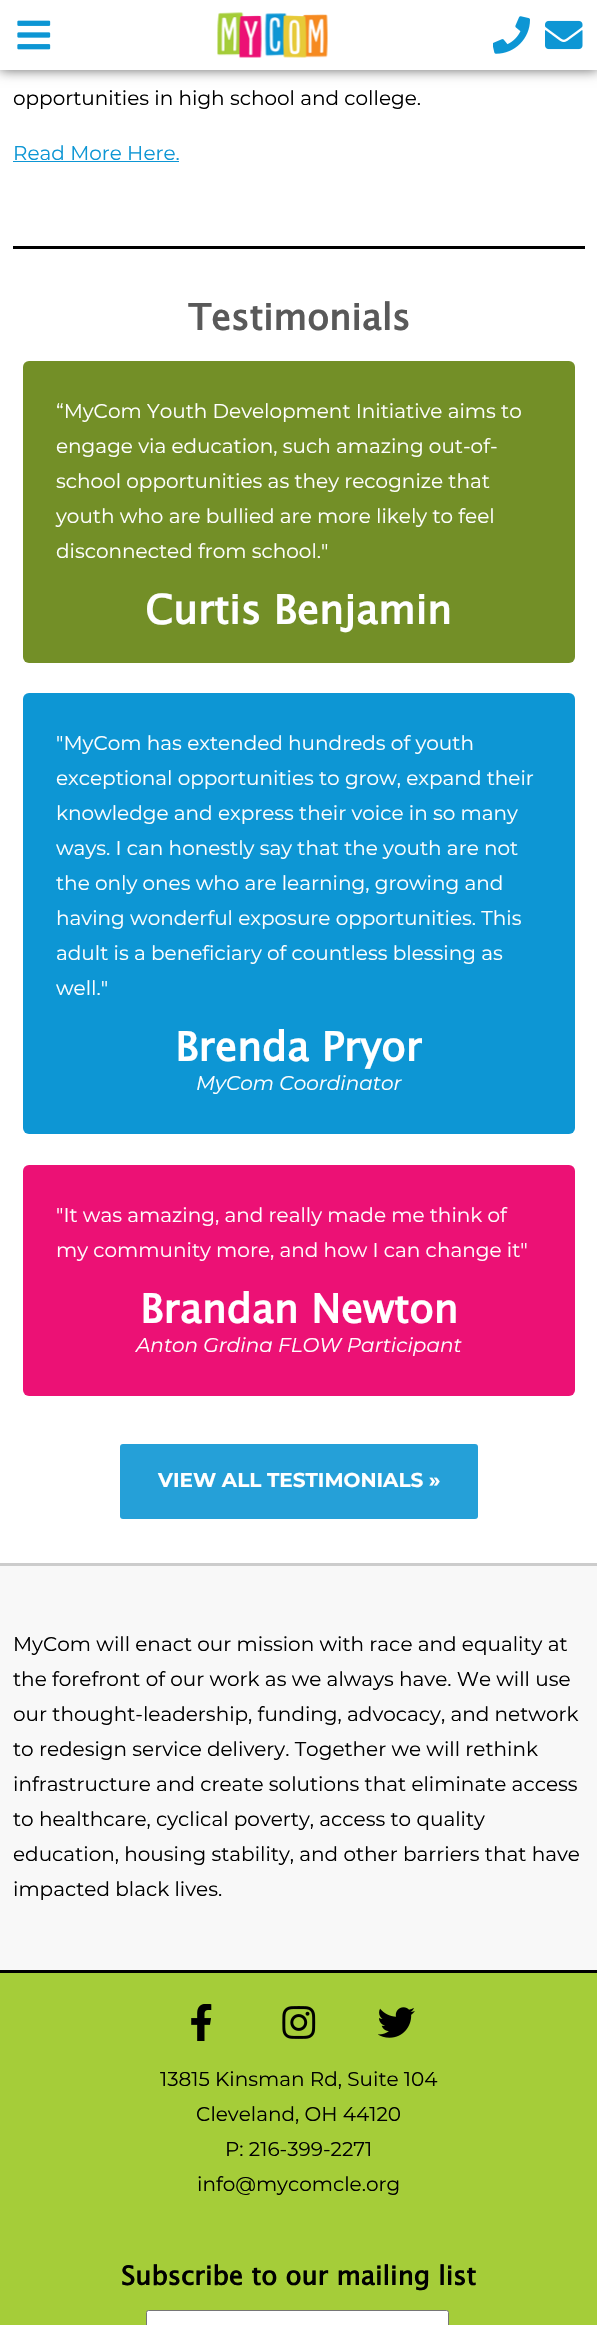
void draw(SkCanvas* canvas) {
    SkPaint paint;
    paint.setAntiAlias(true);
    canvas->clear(0xFFFFFFFF);
    paint.setColor(0x99000000);
    paint.setMaskFilter(SkMaskFilter::MakeBlur(kNormal_SkBlurStyle, 6));
    canvas->drawRect(SkRect::MakeXYWH(0, 0, 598, 70), paint);
    paint.setMaskFilter(nullptr);
    paint.setColor(0xFFFFFFFF);
    canvas->drawRect(SkRect::MakeXYWH(0, 0, 597, 70), paint);
    canvas->drawImageRect(SkImages::DeferredFromEncodedData(SkData::MakeFromFileName("img1.png")), SkRect::MakeXYWH(17, 20, 34, 30), SkSamplingOptions());
    canvas->drawImageRect(SkImages::DeferredFromEncodedData(SkData::MakeFromFileName("img2.png")), SkRect::MakeXYWH(217, 12, 111, 46), SkSamplingOptions());
    canvas->drawImageRect(SkImages::DeferredFromEncodedData(SkData::MakeFromFileName("img3.png")), SkRect::MakeXYWH(493, 16, 37, 38), SkSamplingOptions());
    canvas->drawImageRect(SkImages::DeferredFromEncodedData(SkData::MakeFromFileName("img4.png")), SkRect::MakeXYWH(545, 20, 38, 30), SkSamplingOptions());
    SkFont font1(fontMgr->matchFamilyStyle("Montserrat", SkFontStyle::Normal()), 20);
    font1.setSubpixel(true);
    paint.setColor(0xFF000000);
    canvas->drawString("opportunities in high school and college.", 13, 105, font1, paint);
    paint.setColor(0xFF0D96D4);
    canvas->drawString("Read More Here.", 13, 160, font1, paint);
    canvas->drawRect(SkRect::MakeXYWH(13, 161, 166, 1), paint);
    paint.setColor(0xFF000000);
    canvas->drawRect(SkRect::MakeXYWH(13, 246, 572, 3), paint);
    SkFont font2(fontMgr->matchFamilyStyle("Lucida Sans", SkFontStyle::Bold()), 36);
    font2.setSubpixel(true);
    paint.setColor(0xFF595959);
    canvas->drawString("Testimonials", 188, 330, font2, paint);
    paint.setColor(0xFF738F27);
    canvas->drawRoundRect(SkRect::MakeXYWH(23, 361, 552, 302), 6, 6, paint);
    paint.setColor(0xFFFFFFFF);
    canvas->drawString("“MyCom Youth Development Initiative aims to", 56, 418, font1, paint);
    canvas->drawString("engage via education, such amazing out-of-", 56, 453, font1, paint);
    canvas->drawString("school opportunities as they recognize that", 56, 488, font1, paint);
    canvas->drawString("youth who are bullied are more likely to feel", 56, 523, font1, paint);
    canvas->drawString("disconnected from school.\"", 56, 558, font1, paint);
    SkFont font3(fontMgr->matchFamilyStyle("Lucida Sans", SkFontStyle::Bold()), 40);
    font3.setSubpixel(true);
    canvas->drawString("Curtis Benjamin", 145, 624, font3, paint);
    paint.setColor(0xFF0D96D4);
    canvas->drawRoundRect(SkRect::MakeXYWH(23, 693, 552, 441), 6, 6, paint);
    paint.setColor(0xFFFFFFFF);
    canvas->drawString("\"MyCom has extended hundreds of youth", 56, 750, font1, paint);
    canvas->drawString("exceptional opportunities to grow, expand their", 56, 785, font1, paint);
    canvas->drawString("knowledge and express their voice in so many", 56, 820, font1, paint);
    canvas->drawString("ways. I can honestly say that the youth are not", 56, 855, font1, paint);
    canvas->drawString("the only ones who are learning, growing and", 56, 890, font1, paint);
    canvas->drawString("having wonderful exposure opportunities. This", 56, 925, font1, paint);
    canvas->drawString("adult is a beneficiary of countless blessing as", 56, 960, font1, paint);
    canvas->drawString("well.\"", 56, 995, font1, paint);
    canvas->drawString("Brenda Pryor", 175, 1061, font3, paint);
    SkFont font4(fontMgr->matchFamilyStyle("Montserrat", SkFontStyle::Italic()), 20);
    font4.setSubpixel(true);
    canvas->drawString("MyCom Coordinator", 196, 1090, font4, paint);
    paint.setColor(0xFFEC1175);
    canvas->drawRoundRect(SkRect::MakeXYWH(23, 1165, 552, 231), 6, 6, paint);
    paint.setColor(0xFFFFFFFF);
    canvas->drawString("\"It was amazing, and really made me think of", 56, 1222, font1, paint);
    canvas->drawString("my community more, and how I can change it\"", 56, 1257, font1, paint);
    canvas->drawString("Brandan Newton", 140, 1323, font3, paint);
    canvas->drawString("Anton Grdina FLOW Participant", 136, 1352, font4, paint);
    paint.setColor(0xFF25A0D8);
    canvas->drawRoundRect(SkRect::MakeXYWH(120, 1444, 358, 75), 3, 3, paint);
    SkFont font5(fontMgr->matchFamilyStyle("Montserrat", SkFontStyle::Bold()), 20);
    font5.setSubpixel(true);
    paint.setColor(0xFFFFFFFF);
    canvas->drawString("VIEW ALL TESTIMONIALS »", 158, 1487, font5, paint);
    paint.setColor(0xFFF8F8F8);
    canvas->drawRect(SkRect::MakeXYWH(0, 1566, 597, 404), paint);
    paint.setColor(0xFFCCCCCC);
    canvas->drawRect(SkRect::MakeXYWH(0, 1563, 597, 3), paint);
    paint.setColor(0xFF000000);
    canvas->drawString("MyCom will enact our mission with race and equality at", 13, 1651, font1, paint);
    canvas->drawString("the forefront of our work as we always have. We will use", 13, 1686, font1, paint);
    canvas->drawString("our thought-leadership, funding, advocacy, and network", 13, 1721, font1, paint);
    canvas->drawString("to redesign service delivery. Together we will rethink", 13, 1756, font1, paint);
    canvas->drawString("infrastructure and create solutions that eliminate access", 13, 1791, font1, paint);
    canvas->drawString("to healthcare, cyclical poverty, access to quality", 13, 1826, font1, paint);
    canvas->drawString("education, housing stability, and other barriers that have", 13, 1861, font1, paint);
    canvas->drawString("impacted black lives.", 13, 1896, font1, paint);
    paint.setColor(0xFFA5CD39);
    canvas->drawRect(SkRect::MakeXYWH(0, 1973, 597, 352), paint);
    paint.setColor(0xFF000000);
    canvas->drawRect(SkRect::MakeXYWH(0, 1970, 597, 3), paint);
    canvas->drawImageRect(SkImages::DeferredFromEncodedData(SkData::MakeFromFileName("img5.png")), SkRect::MakeXYWH(191, 2004, 21, 37), SkSamplingOptions());
    canvas->drawImageRect(SkImages::DeferredFromEncodedData(SkData::MakeFromFileName("img6.png")), SkRect::MakeXYWH(282, 2006, 34, 33), SkSamplingOptions());
    canvas->drawImageRect(SkImages::DeferredFromEncodedData(SkData::MakeFromFileName("img7.png")), SkRect::MakeXYWH(378, 2007, 37, 31), SkSamplingOptions());
    canvas->drawString("13815 Kinsman Rd, Suite 104", 160, 2086, font1, paint);
    canvas->drawString("Cleveland, OH 44120", 196, 2121, font1, paint);
    canvas->drawString("P: 216-399-2271", 225, 2156, font1, paint);
    canvas->drawString("info@mycomcle.org", 197, 2191, font1, paint);
    SkFont font6(fontMgr->matchFamilyStyle("Lucida Sans", SkFontStyle::Bold()), 26);
    font6.setSubpixel(true);
    canvas->drawString("Subscribe to our mailing list", 121, 2285, font6, paint);
    paint.setColor(0xFFFFFFFF);
    canvas->drawRoundRect(SkRect::MakeXYWH(146.5f, 2310.5f, 302, 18), 2, 2, paint);
    paint.setStyle(SkPaint::kStroke_Style);
    paint.setStrokeWidth(1);
    paint.setColor(0xFF767676);
    canvas->drawRoundRect(SkRect::MakeXYWH(146.5f, 2310.5f, 302, 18), 2, 2, paint);
}
